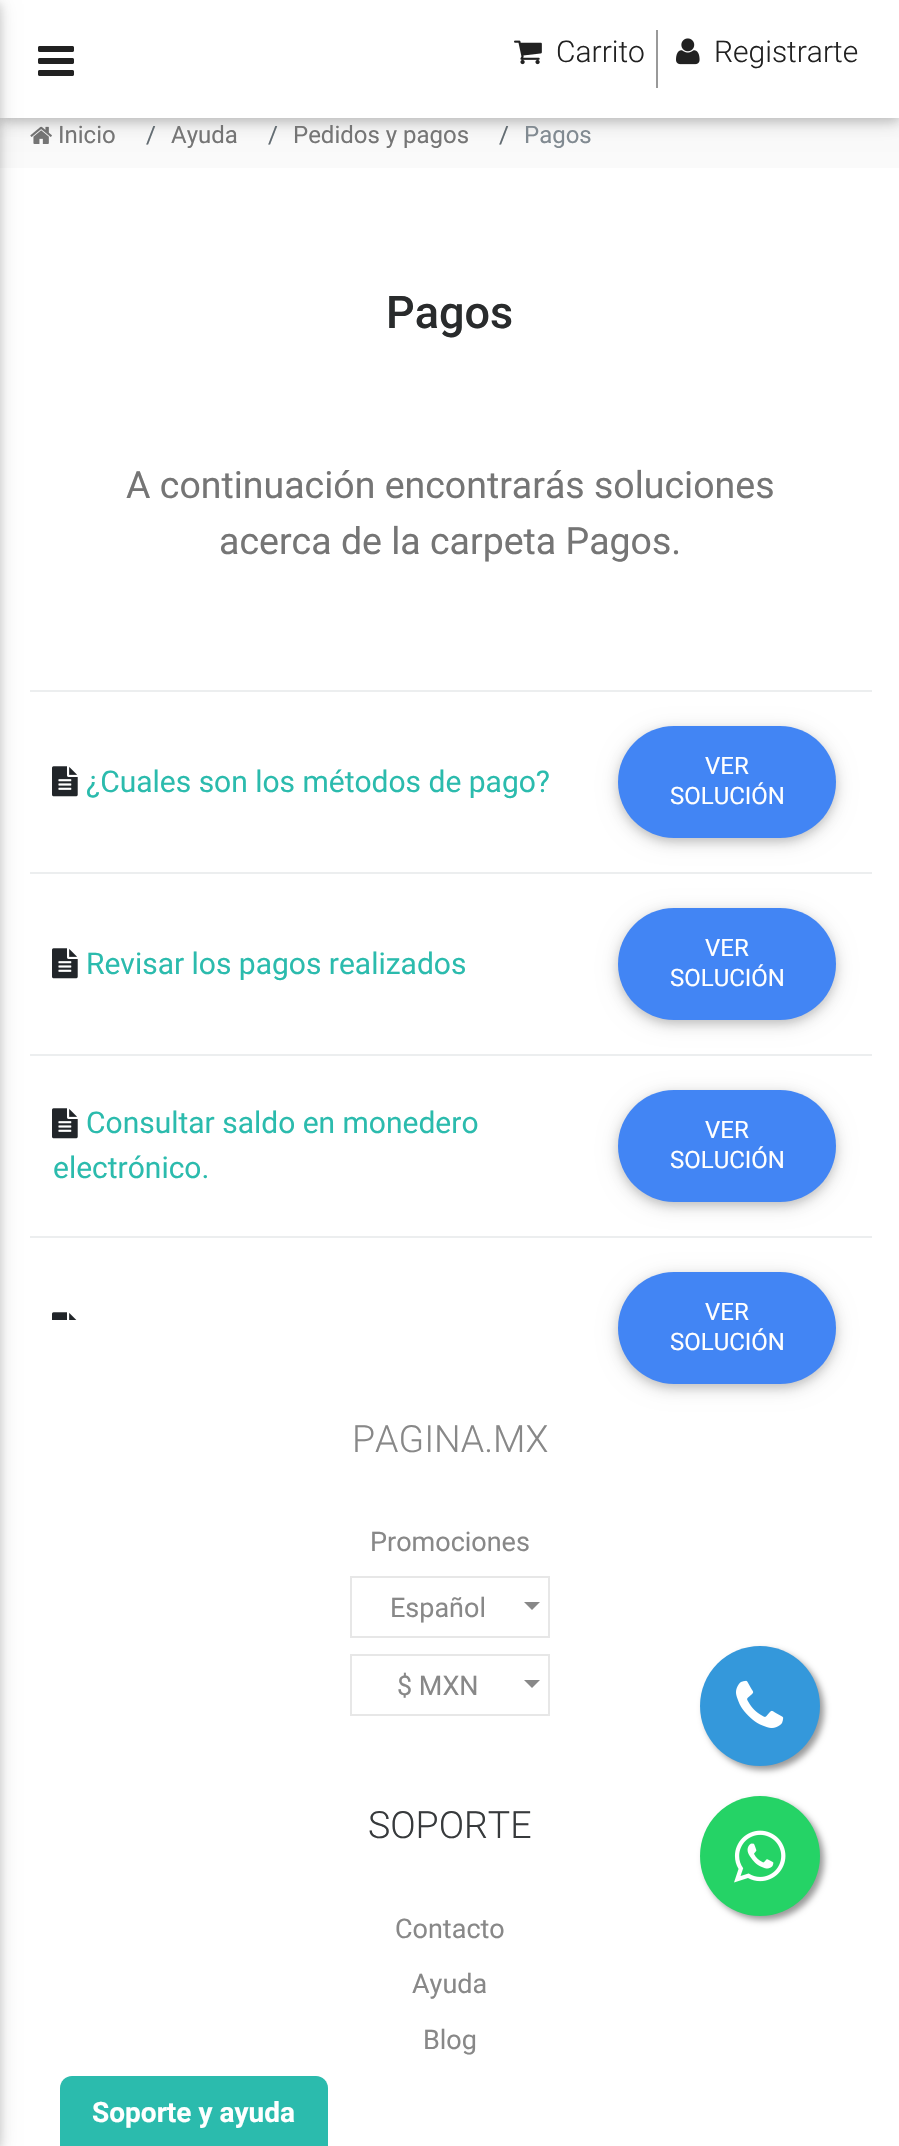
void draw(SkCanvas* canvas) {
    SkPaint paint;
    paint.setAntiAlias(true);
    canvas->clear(0xFFFFFFFF);
    paint.setColor(0xFFFAFAFA);
    canvas->drawRect(SkRect::MakeXYWH(0, 118, 899, 50), paint);
    canvas->drawImageRect(SkImages::DeferredFromEncodedData(SkData::MakeFromFileName("img4.png")), SkRect::MakeXYWH(30, 126, 22, 18), SkSamplingOptions());
    paint.setColor(0x1F000000);
    paint.setMaskFilter(SkMaskFilter::MakeBlur(kNormal_SkBlurStyle, 10));
    canvas->drawRect(SkRect::MakeXYWH(0, 4, 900, 118), paint);
    paint.setMaskFilter(nullptr);
    paint.setColor(0x29000000);
    paint.setMaskFilter(SkMaskFilter::MakeBlur(kNormal_SkBlurStyle, 5));
    canvas->drawRect(SkRect::MakeXYWH(0, 4, 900, 118), paint);
    paint.setMaskFilter(nullptr);
    paint.setColor(0xFFFFFFFF);
    canvas->drawRect(SkRect::MakeXYWH(0, 0, 899, 118), paint);
    paint.setColor(0xFFECEEEF);
    canvas->drawRect(SkRect::MakeXYWH(30, 690, 842, 2), paint);
    canvas->drawRect(SkRect::MakeXYWH(30, 872, 842, 2), paint);
    canvas->drawRect(SkRect::MakeXYWH(30, 1054, 842, 2), paint);
    canvas->drawRect(SkRect::MakeXYWH(30, 1236, 842, 2), paint);
    paint.setColor(0x1F000000);
    paint.setMaskFilter(SkMaskFilter::MakeBlur(kNormal_SkBlurStyle, 10));
    canvas->drawRect(SkRect::MakeXYWH(-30, 4, 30, 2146), paint);
    paint.setMaskFilter(nullptr);
    paint.setColor(0x29000000);
    paint.setMaskFilter(SkMaskFilter::MakeBlur(kNormal_SkBlurStyle, 5));
    canvas->drawRect(SkRect::MakeXYWH(-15, 4, 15, 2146), paint);
    paint.setMaskFilter(nullptr);
    canvas->drawImageRect(SkImages::DeferredFromEncodedData(SkData::MakeFromFileName("img1.png")), SkRect::MakeXYWH(38, 46, 36, 30), SkSamplingOptions());
    canvas->drawImageRect(SkImages::DeferredFromEncodedData(SkData::MakeFromFileName("img2.png")), SkRect::MakeXYWH(514, 40, 28, 25), SkSamplingOptions());
    SkFont font1(fontMgr->matchFamilyStyle("Roboto", SkFontStyle(300, SkFontStyle::kNormal_Width, SkFontStyle::kUpright_Slant)), 30);
    font1.setSubpixel(true);
    paint.setColor(0xFF212121);
    canvas->drawString("Carrito", 556, 62, font1, paint);
    paint.setColor(0xFF999999);
    canvas->drawRect(SkRect::MakeXYWH(656, 30, 2, 58), paint);
    canvas->drawImageRect(SkImages::DeferredFromEncodedData(SkData::MakeFromFileName("img3.png")), SkRect::MakeXYWH(676, 38, 24, 27), SkSamplingOptions());
    paint.setColor(0xFF212121);
    canvas->drawString("Registrarte", 714, 62, font1, paint);
    SkFont font2(fontMgr->matchFamilyStyle("Roboto", SkFontStyle::Normal()), 24);
    font2.setSubpixel(true);
    paint.setColor(0xFF757575);
    canvas->drawString("Inicio", 58, 143, font2, paint);
    paint.setColor(0xFF636C72);
    canvas->drawString("/", 146, 143, font2, paint);
    paint.setColor(0xFF757575);
    canvas->drawString("Ayuda", 171, 143, font2, paint);
    paint.setColor(0xFF636C72);
    canvas->drawString("/", 268, 143, font2, paint);
    paint.setColor(0xFF757575);
    canvas->drawString("Pedidos y pagos", 293, 143, font2, paint);
    paint.setColor(0xFF636C72);
    canvas->drawString("/", 499, 143, font2, paint);
    paint.setColor(0xFF818A91);
    canvas->drawString("Pagos", 524, 143, font2, paint);
    SkFont font3(fontMgr->matchFamilyStyle("Roboto", SkFontStyle(500, SkFontStyle::kNormal_Width, SkFontStyle::kUpright_Slant)), 45);
    font3.setSubpixel(true);
    paint.setColor(0xFF292B2C);
    canvas->drawString("Pagos", 386, 328, font3, paint);
    SkFont font4(fontMgr->matchFamilyStyle("Roboto", SkFontStyle::Normal()), 37.5f);
    font4.setSubpixel(true);
    paint.setColor(0xFF757575);
    canvas->drawString("A continuación encontrarás soluciones", 126, 498, font4, paint);
    canvas->drawString("acerca de la carpeta Pagos.", 219, 554, font4, paint);
    canvas->drawImageRect(SkImages::DeferredFromEncodedData(SkData::MakeFromFileName("img5.png")), SkRect::MakeXYWH(52, 766, 26, 31), SkSamplingOptions());
    SkFont font5(fontMgr->matchFamilyStyle("Roboto", SkFontStyle::Normal()), 30);
    font5.setSubpixel(true);
    paint.setColor(0xFF2BBBAD);
    canvas->drawString("¿Cuales son los métodos de pago?", 86, 792, font5, paint);
    paint.setColor(0x1F000000);
    paint.setMaskFilter(SkMaskFilter::MakeBlur(kNormal_SkBlurStyle, 10));
    canvas->drawRoundRect(SkRect::MakeXYWH(618, 730, 218, 112), 56, 56, paint);
    paint.setMaskFilter(nullptr);
    paint.setColor(0x29000000);
    paint.setMaskFilter(SkMaskFilter::MakeBlur(kNormal_SkBlurStyle, 5));
    canvas->drawRoundRect(SkRect::MakeXYWH(618, 730, 218, 112), 56, 56, paint);
    paint.setMaskFilter(nullptr);
    paint.setColor(0xFF4285F4);
    canvas->drawRoundRect(SkRect::MakeXYWH(618, 726, 218, 112), 56, 56, paint);
    paint.setColor(0xFFFFFFFF);
    canvas->drawString("VER", 705, 774, font2, paint);
    canvas->drawString("SOLUCIÓN", 670, 804, font2, paint);
    canvas->drawImageRect(SkImages::DeferredFromEncodedData(SkData::MakeFromFileName("img5.png")), SkRect::MakeXYWH(52, 948, 26, 31), SkSamplingOptions());
    paint.setColor(0xFF2BBBAD);
    canvas->drawString("Revisar los pagos realizados", 86, 974, font5, paint);
    paint.setColor(0x1F000000);
    paint.setMaskFilter(SkMaskFilter::MakeBlur(kNormal_SkBlurStyle, 10));
    canvas->drawRoundRect(SkRect::MakeXYWH(618, 912, 218, 112), 56, 56, paint);
    paint.setMaskFilter(nullptr);
    paint.setColor(0x29000000);
    paint.setMaskFilter(SkMaskFilter::MakeBlur(kNormal_SkBlurStyle, 5));
    canvas->drawRoundRect(SkRect::MakeXYWH(618, 912, 218, 112), 56, 56, paint);
    paint.setMaskFilter(nullptr);
    paint.setColor(0xFF4285F4);
    canvas->drawRoundRect(SkRect::MakeXYWH(618, 908, 218, 112), 56, 56, paint);
    paint.setColor(0xFFFFFFFF);
    canvas->drawString("VER", 705, 956, font2, paint);
    canvas->drawString("SOLUCIÓN", 670, 986, font2, paint);
    canvas->drawImageRect(SkImages::DeferredFromEncodedData(SkData::MakeFromFileName("img5.png")), SkRect::MakeXYWH(52, 1108, 26, 31), SkSamplingOptions());
    paint.setColor(0xFF2BBBAD);
    canvas->drawString("Consultar saldo en monedero", 86, 1133, font5, paint);
    canvas->drawString("electrónico.", 53, 1178, font5, paint);
    paint.setColor(0x1F000000);
    paint.setMaskFilter(SkMaskFilter::MakeBlur(kNormal_SkBlurStyle, 10));
    canvas->drawRoundRect(SkRect::MakeXYWH(618, 1094, 218, 112), 56, 56, paint);
    paint.setMaskFilter(nullptr);
    paint.setColor(0x29000000);
    paint.setMaskFilter(SkMaskFilter::MakeBlur(kNormal_SkBlurStyle, 5));
    canvas->drawRoundRect(SkRect::MakeXYWH(618, 1094, 218, 112), 56, 56, paint);
    paint.setMaskFilter(nullptr);
    paint.setColor(0xFF4285F4);
    canvas->drawRoundRect(SkRect::MakeXYWH(618, 1090, 218, 112), 56, 56, paint);
    paint.setColor(0xFFFFFFFF);
    canvas->drawString("VER", 705, 1138, font2, paint);
    canvas->drawString("SOLUCIÓN", 670, 1168, font2, paint);
    canvas->drawImageRect(SkImages::DeferredFromEncodedData(SkData::MakeFromFileName("img6.png")), SkRect::MakeXYWH(52, 1312, 25, 8), SkSamplingOptions());
    paint.setColor(0x1F000000);
    paint.setMaskFilter(SkMaskFilter::MakeBlur(kNormal_SkBlurStyle, 10));
    canvas->drawRoundRect(SkRect::MakeXYWH(618, 1276, 218, 112), 56, 56, paint);
    paint.setMaskFilter(nullptr);
    paint.setColor(0x29000000);
    paint.setMaskFilter(SkMaskFilter::MakeBlur(kNormal_SkBlurStyle, 5));
    canvas->drawRoundRect(SkRect::MakeXYWH(618, 1276, 218, 112), 56, 56, paint);
    paint.setMaskFilter(nullptr);
    paint.setColor(0xFF4285F4);
    canvas->drawRoundRect(SkRect::MakeXYWH(618, 1272, 218, 112), 56, 56, paint);
    paint.setColor(0xFFFFFFFF);
    canvas->drawString("VER", 705, 1320, font2, paint);
    canvas->drawString("SOLUCIÓN", 670, 1350, font2, paint);
    SkFont font6(fontMgr->matchFamilyStyle("Roboto", SkFontStyle(300, SkFontStyle::kNormal_Width, SkFontStyle::kUpright_Slant)), 37.5f);
    font6.setSubpixel(true);
    paint.setColor(0xFF888888);
    canvas->drawString("PAGINA.MX", 352, 1452, font6, paint);
    SkFont font7(fontMgr->matchFamilyStyle("Roboto", SkFontStyle::Normal()), 27);
    font7.setSubpixel(true);
    canvas->drawString("Promociones", 370, 1551, font7, paint);
    paint.setStyle(SkPaint::kStroke_Style);
    paint.setStrokeWidth(2);
    paint.setColor(0xFFE7E7E7);
    canvas->drawRect(SkRect::MakeXYWH(351, 1577, 198, 60), paint);
    paint.setStyle(SkPaint::kFill_Style);
    paint.setColor(0xFF888888);
    canvas->drawString("Español", 390, 1617, font7, paint);
    canvas->drawPath(SkPathBuilder().moveTo(524, 1602).lineTo(540, 1602).lineTo(532, 1610).close().detach(), paint);
    paint.setStyle(SkPaint::kStroke_Style);
    paint.setColor(0xFFE7E7E7);
    canvas->drawRect(SkRect::MakeXYWH(351, 1655, 198, 60), paint);
    paint.setStyle(SkPaint::kFill_Style);
    paint.setColor(0xFF888888);
    canvas->drawString("$ MXN", 397, 1695, font7, paint);
    canvas->drawPath(SkPathBuilder().moveTo(524, 1680).lineTo(540, 1680).lineTo(532, 1688).close().detach(), paint);
    paint.setColor(0xFF373A3C);
    canvas->drawString("SOPORTE", 368, 1838, font6, paint);
    paint.setColor(0xFF888888);
    canvas->drawString("Contacto", 395, 1938, font7, paint);
    canvas->drawString("Ayuda", 412, 1993, font7, paint);
    canvas->drawString("Blog", 423, 2049, font7, paint);
    paint.setColor(0xFF999999);
    paint.setMaskFilter(SkMaskFilter::MakeBlur(kNormal_SkBlurStyle, 3));
    canvas->drawRoundRect(SkRect::MakeXYWH(704, 1650, 120, 120), 60, 60, paint);
    paint.setMaskFilter(nullptr);
    paint.setColor(0xFF3498DB);
    canvas->drawCircle(760, 1706, 60, paint);
    canvas->drawImageRect(SkImages::DeferredFromEncodedData(SkData::MakeFromFileName("img7.png")), SkRect::MakeXYWH(736, 1680, 48, 48), SkSamplingOptions());
    paint.setColor(0xFF999999);
    paint.setMaskFilter(SkMaskFilter::MakeBlur(kNormal_SkBlurStyle, 3));
    canvas->drawRoundRect(SkRect::MakeXYWH(704, 1800, 120, 120), 60, 60, paint);
    paint.setMaskFilter(nullptr);
    paint.setColor(0xFF25D366);
    canvas->drawCircle(760, 1856, 60, paint);
    canvas->drawImageRect(SkImages::DeferredFromEncodedData(SkData::MakeFromFileName("img8.png")), SkRect::MakeXYWH(734, 1830, 52, 53), SkSamplingOptions());
    paint.setColor(0xFF2BBBAD);
    canvas->drawPath(SkPathBuilder().moveTo(72, 2076).lineTo(316, 2076).cubicTo(322.5f, 2076, 328, 2081.5f, 328, 2088).lineTo(328, 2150).lineTo(60, 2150).lineTo(60, 2088).cubicTo(60, 2081.5f, 65.5f, 2076, 72, 2076).close().detach(), paint);
    SkFont font8(fontMgr->matchFamilyStyle("Roboto", SkFontStyle::Bold()), 28);
    font8.setSubpixel(true);
    paint.setColor(0xFFFFFFFF);
    canvas->drawString("Soporte y ayuda", 92, 2122, font8, paint);
}
